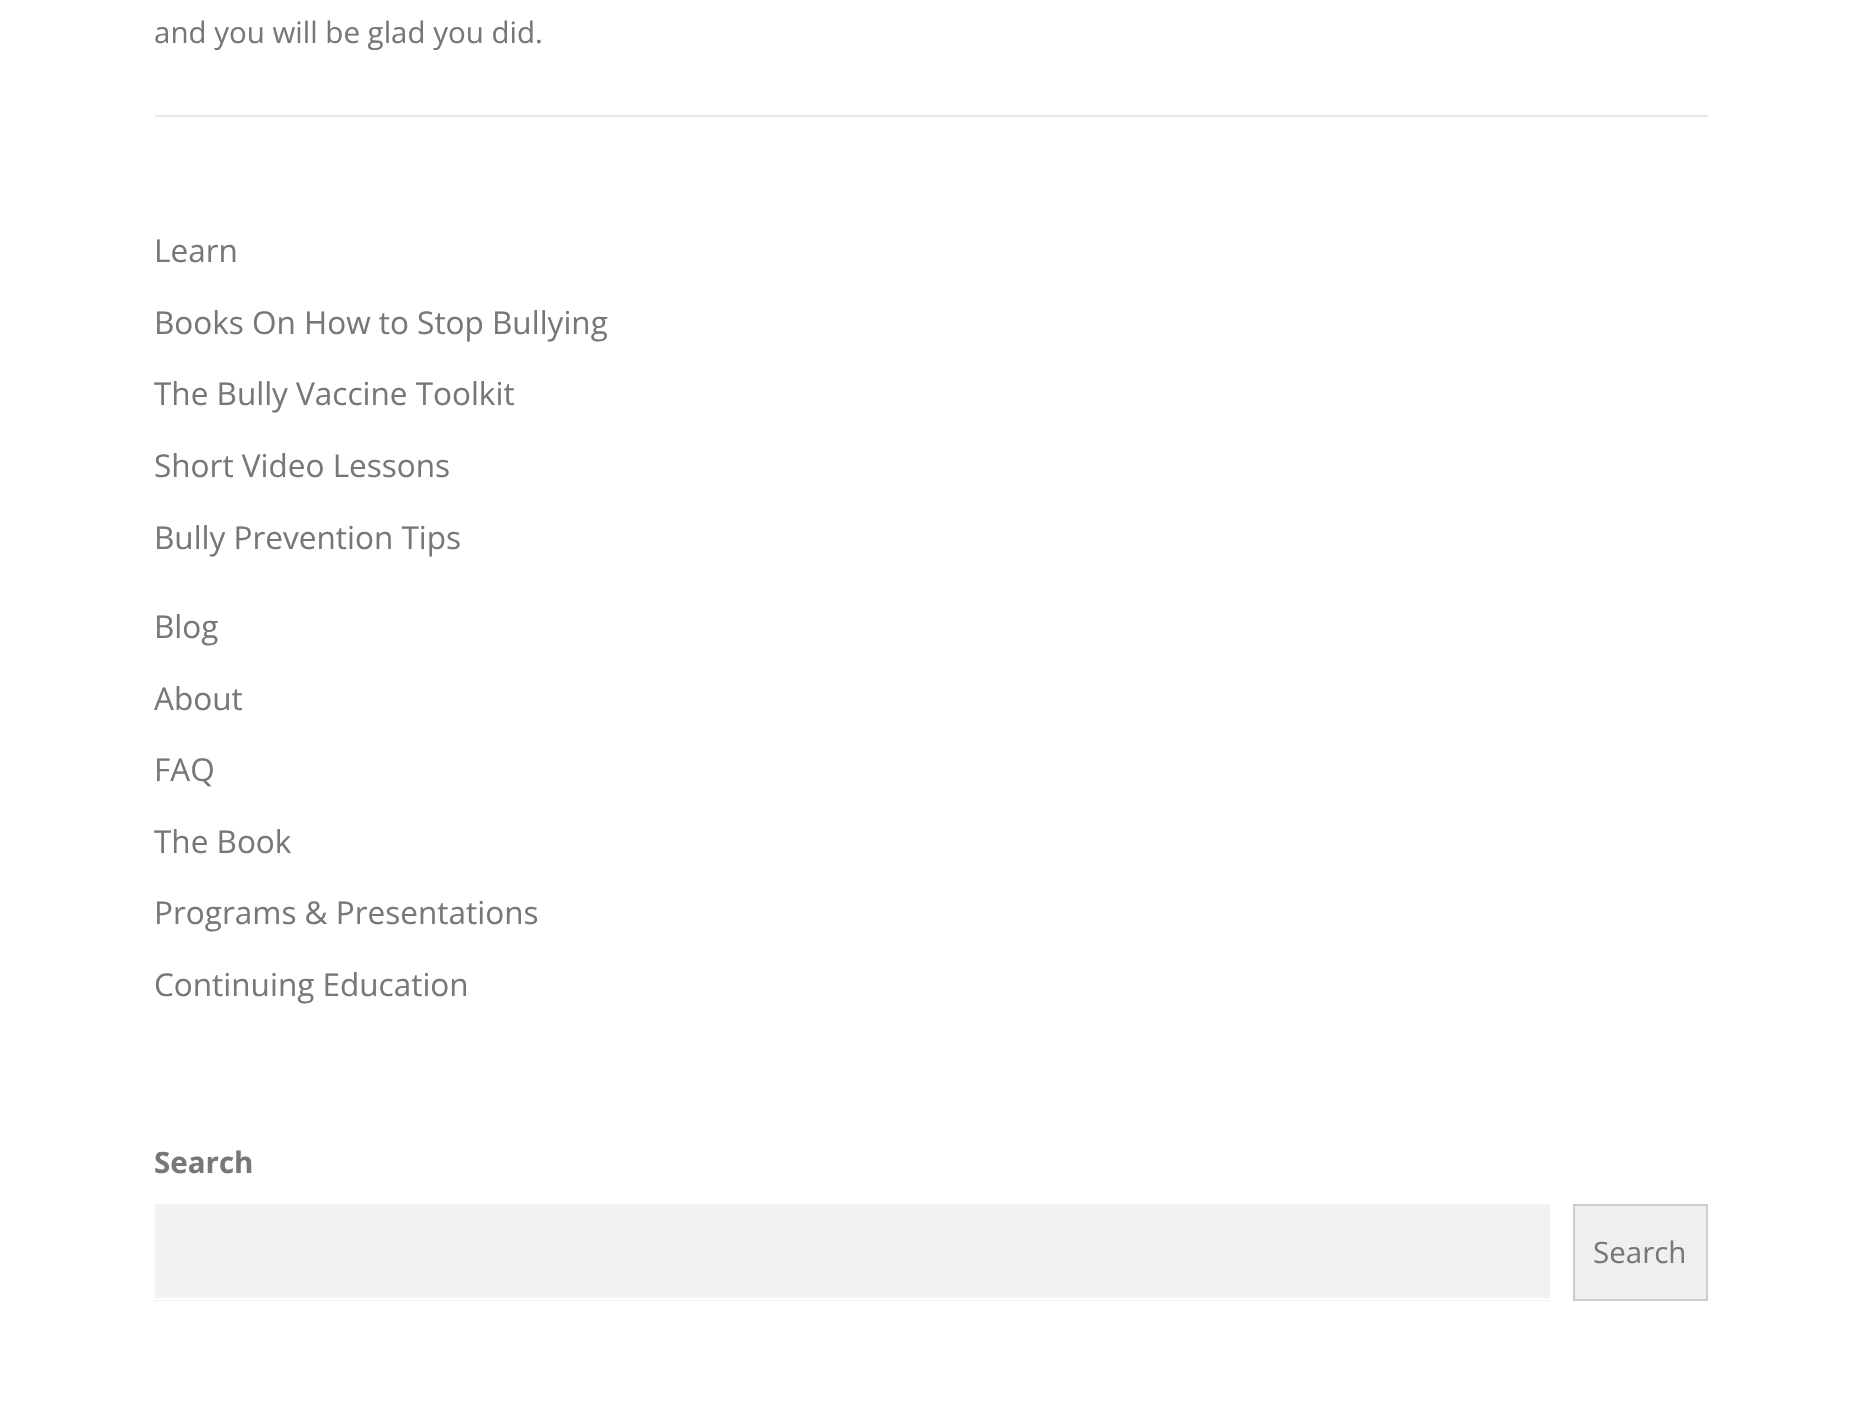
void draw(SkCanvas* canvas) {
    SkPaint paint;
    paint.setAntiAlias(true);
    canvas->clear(0xFFFFFFFF);
    paint.setColor(0xFFE9E9E9);
    canvas->drawRect(SkRect::MakeXYWH(155, 115, 1553, 2), paint);
    SkFont font1(fontMgr->matchFamilyStyle("Open Sans", SkFontStyle::Normal()), 29.5f);
    font1.setSubpixel(true);
    paint.setColor(0xFF777777);
    canvas->drawString("and you will be glad you did.", 154, 43, font1, paint);
    SkFont font2(fontMgr->matchFamilyStyle("Open Sans", SkFontStyle::Normal()), 31.5f);
    font2.setSubpixel(true);
    canvas->drawString("Learn", 154, 262, font2, paint);
    canvas->drawString("Books On How to Stop Bullying", 154, 334, font2, paint);
    canvas->drawString("The Bully Vaccine Toolkit", 154, 405, font2, paint);
    canvas->drawString("Short Video Lessons", 154, 477, font2, paint);
    canvas->drawString("Bully Prevention Tips", 154, 549, font2, paint);
    canvas->drawString("Blog", 154, 638, font2, paint);
    canvas->drawString("About", 154, 710, font2, paint);
    canvas->drawString("FAQ", 154, 781, font2, paint);
    canvas->drawString("The Book", 154, 853, font2, paint);
    canvas->drawString("Programs & Presentations", 154, 924, font2, paint);
    canvas->drawString("Continuing Education", 154, 996, font2, paint);
    SkFont font3(fontMgr->matchFamilyStyle("Open Sans", SkFontStyle::Bold()), 29.5f);
    font3.setSubpixel(true);
    canvas->drawString("Search", 154, 1173, font3, paint);
    paint.setColor(0xFFF2F2F2);
    canvas->drawRect(SkRect::MakeXYWH(155, 1204, 1395, 97), paint);
    paint.setColor(0xFFFFFFFF);
    canvas->drawRect(SkRect::MakeXYWH(155, 1298, 1395, 2), paint);
    paint.setColor(0xFFEFEFEF);
    canvas->drawRect(SkRect::MakeXYWH(1574, 1205, 133, 95), paint);
    paint.setStyle(SkPaint::kStroke_Style);
    paint.setStrokeWidth(2);
    paint.setColor(0xFFCCCCCC);
    canvas->drawRect(SkRect::MakeXYWH(1574, 1205, 133, 95), paint);
    paint.setStyle(SkPaint::kFill_Style);
    paint.setColor(0xFF777777);
    canvas->drawString("Search", 1593, 1263, font1, paint);
}
